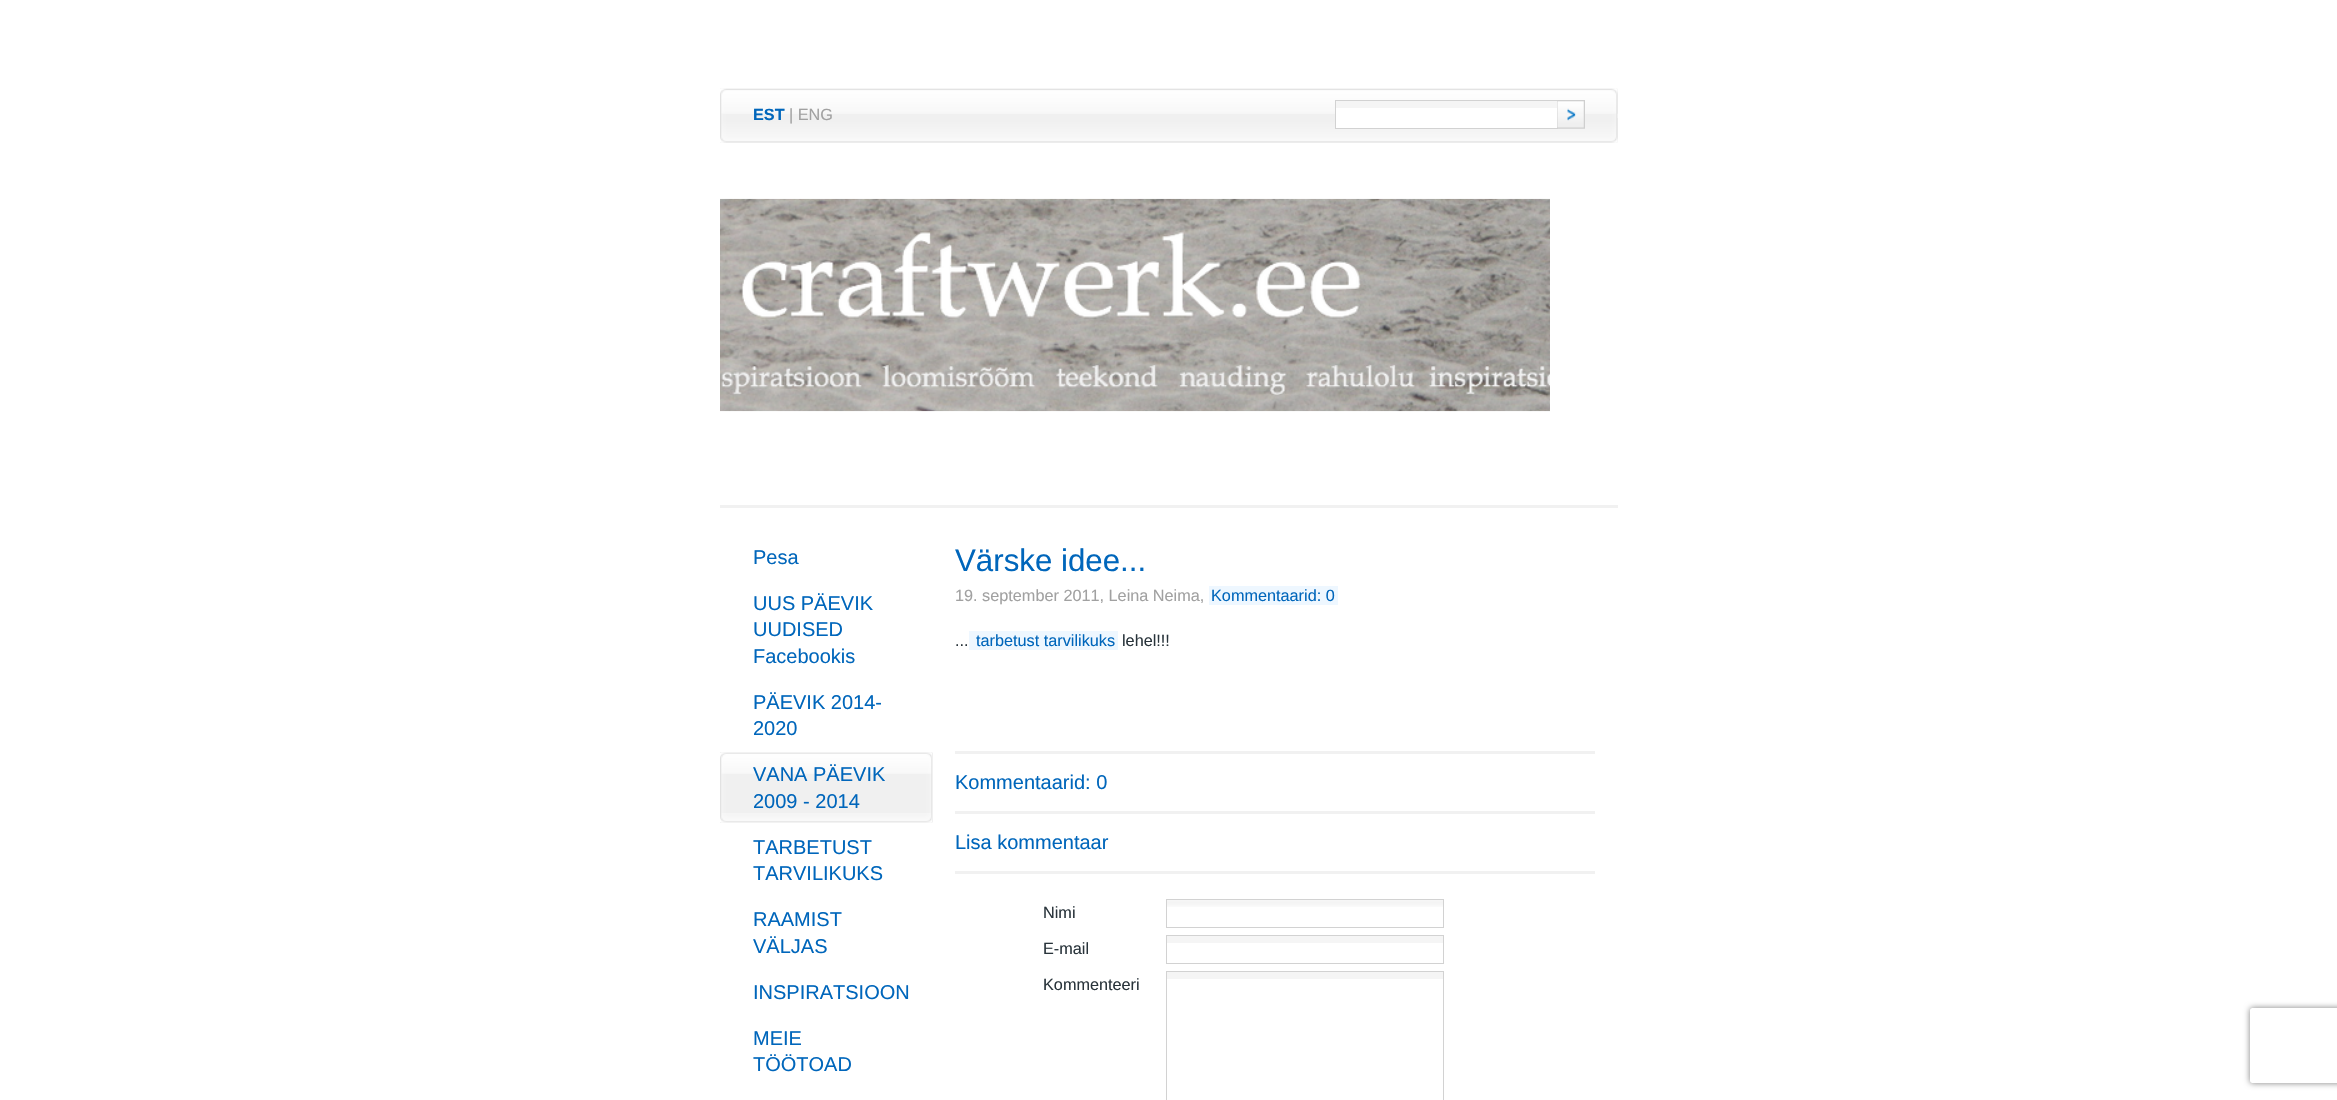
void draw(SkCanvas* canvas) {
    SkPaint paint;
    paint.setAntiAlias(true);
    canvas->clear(0xFFFFFFFF);
    canvas->drawImageRect(SkImages::DeferredFromEncodedData(SkData::MakeFromFileName("img1.png")), SkRect::MakeXYWH(720, 88, 898, 55), SkSamplingOptions());
    canvas->drawImageRect(SkImages::DeferredFromEncodedData(SkData::MakeFromFileName("img2.png")), SkRect::MakeXYWH(720, 88, 898, 26), SkSamplingOptions());
    canvas->drawImageRect(SkImages::DeferredFromEncodedData(SkData::MakeFromFileName("img3.png")), SkRect::MakeXYWH(720, 118, 898, 25), SkSamplingOptions());
    SkFont font1(fontMgr->matchFamilyStyle("Liberation Sans", SkFontStyle::Bold()), 16.25f);
    font1.setSubpixel(true);
    paint.setColor(0xFF0066BB);
    canvas->drawString("EST", 753, 120, font1, paint);
    SkFont font2(fontMgr->matchFamilyStyle("Liberation Sans", SkFontStyle::Normal()), 16.25f);
    font2.setSubpixel(true);
    paint.setColor(0xFFA1A1A1);
    canvas->drawString("| ENG", 789, 120, font2, paint);
    paint.setColor(0xFFFFFFFF);
    canvas->drawRect(SkRect::MakeXYWH(1336, 108, 221, 20), paint);
    paint.setColor(0xFFF5F5F5);
    canvas->drawRect(SkRect::MakeXYWH(1335, 101, 223, 7), paint);
    paint.setStyle(SkPaint::kStroke_Style);
    paint.setStrokeWidth(1);
    paint.setColor(0xFFD2D2D2);
    canvas->drawRect(SkRect::MakeXYWH(1335.5f, 100.5f, 222, 28), paint);
    canvas->drawImageRect(SkImages::DeferredFromEncodedData(SkData::MakeFromFileName("img4.png")), SkRect::MakeXYWH(1557, 100, 28, 29), SkSamplingOptions());
    paint.setStyle(SkPaint::kFill_Style);
    paint.setColor(0xFFF1F1F1);
    canvas->drawRect(SkRect::MakeXYWH(720, 505, 898, 3), paint);
    canvas->drawImageRect(SkImages::DeferredFromEncodedData(SkData::MakeFromFileName("img5.png")), SkRect::MakeXYWH(720, 198, 830, 214), SkSamplingOptions());
    SkFont font3(fontMgr->matchFamilyStyle("Liberation Sans", SkFontStyle::Normal()), 20);
    font3.setSubpixel(true);
    paint.setColor(0xFF0066BB);
    canvas->drawString("Pesa", 753, 564, font3, paint);
    canvas->drawString("UUS PÄEVIK", 753, 610, font3, paint);
    canvas->drawString("UUDISED", 753, 636, font3, paint);
    canvas->drawString("Facebookis", 753, 663, font3, paint);
    canvas->drawString("PÄEVIK 2014-", 753, 709, font3, paint);
    canvas->drawString("2020", 753, 735, font3, paint);
    canvas->drawImageRect(SkImages::DeferredFromEncodedData(SkData::MakeFromFileName("img6.png")), SkRect::MakeXYWH(720, 752, 213, 71), SkSamplingOptions());
    canvas->drawImageRect(SkImages::DeferredFromEncodedData(SkData::MakeFromFileName("img7.png")), SkRect::MakeXYWH(720, 752, 212, 22), SkSamplingOptions());
    canvas->drawImageRect(SkImages::DeferredFromEncodedData(SkData::MakeFromFileName("img8.png")), SkRect::MakeXYWH(720, 813, 212, 10), SkSamplingOptions());
    canvas->drawString("VANA PÄEVIK", 753, 781, font3, paint);
    canvas->drawString("2009 - 2014", 753, 808, font3, paint);
    canvas->drawString("TARBETUST", 753, 854, font3, paint);
    canvas->drawString("TARVILIKUKS", 753, 880, font3, paint);
    canvas->drawString("RAAMIST", 753, 926, font3, paint);
    canvas->drawString("VÄLJAS", 753, 953, font3, paint);
    canvas->drawString("INSPIRATSIOON", 753, 999, font3, paint);
    canvas->drawString("MEIE", 753, 1045, font3, paint);
    canvas->drawString("TÖÖTOAD", 753, 1071, font3, paint);
    SkFont font4(fontMgr->matchFamilyStyle("Liberation Sans", SkFontStyle::Normal()), 31.25f);
    font4.setSubpixel(true);
    canvas->drawString("Värske idee...", 955, 571, font4, paint);
    paint.setColor(0xFFA1A1A1);
    canvas->drawString("19. september 2011, Leina Neima,", 955, 601, font2, paint);
    paint.setColor(0xFFEEF7FF);
    canvas->drawRect(SkRect::MakeXYWH(1209, 586, 129, 19), paint);
    paint.setColor(0xFF0066BB);
    canvas->drawString("Kommentaarid: 0", 1211, 601, font2, paint);
    paint.setColor(0xFF29343B);
    canvas->drawString("...", 955, 646, font2, paint);
    paint.setColor(0xFFEEF7FF);
    canvas->drawRect(SkRect::MakeXYWH(969, 631, 149, 19), paint);
    paint.setColor(0xFF0066BB);
    canvas->drawString("tarbetust tarvilikuks", 976, 646, font2, paint);
    paint.setColor(0xFF29343B);
    canvas->drawString("lehel!!!", 1122, 646, font2, paint);
    paint.setColor(0xFFF1F1F1);
    canvas->drawRect(SkRect::MakeXYWH(955, 751, 640, 3), paint);
    paint.setColor(0xFF0066BB);
    canvas->drawString("Kommentaarid: 0", 955, 789, font3, paint);
    paint.setColor(0xFFF1F1F1);
    canvas->drawRect(SkRect::MakeXYWH(955, 811, 640, 3), paint);
    paint.setColor(0xFF0066BB);
    canvas->drawString("Lisa kommentaar", 955, 849, font3, paint);
    paint.setColor(0xFFF1F1F1);
    canvas->drawRect(SkRect::MakeXYWH(955, 871, 640, 3), paint);
    paint.setColor(0xFF29343B);
    canvas->drawString("Nimi", 1043, 918, font2, paint);
    canvas->drawImageRect(SkImages::DeferredFromEncodedData(SkData::MakeFromFileName("img9.png")), SkRect::MakeXYWH(1167, 900, 276, 7), SkSamplingOptions());
    paint.setStyle(SkPaint::kStroke_Style);
    paint.setColor(0xFFD2D2D2);
    canvas->drawRect(SkRect::MakeXYWH(1166.5f, 899.5f, 277, 28), paint);
    paint.setStyle(SkPaint::kFill_Style);
    paint.setColor(0xFF29343B);
    canvas->drawString("E-mail", 1043, 954, font2, paint);
    paint.setColor(0xFFF5F5F5);
    canvas->drawRect(SkRect::MakeXYWH(1166, 936, 278, 7), paint);
    paint.setStyle(SkPaint::kStroke_Style);
    paint.setColor(0xFFD2D2D2);
    canvas->drawRect(SkRect::MakeXYWH(1166.5f, 935.5f, 277, 28), paint);
    paint.setStyle(SkPaint::kFill_Style);
    paint.setColor(0xFF29343B);
    canvas->drawString("Kommenteeri", 1043, 990, font2, paint);
    paint.setColor(0xFFF5F5F5);
    canvas->drawRect(SkRect::MakeXYWH(1166, 972, 278, 7), paint);
    paint.setStyle(SkPaint::kStroke_Style);
    paint.setColor(0xFFD2D2D2);
    canvas->drawRect(SkRect::MakeXYWH(1166.5f, 971.5f, 277, 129), paint);
    canvas->save();
    canvas->clipPath(SkPathBuilder(SkPathFillType::kEvenOdd).moveTo(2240, 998).lineTo(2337, 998).lineTo(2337, 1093).lineTo(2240, 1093).close().moveTo(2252.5f, 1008).lineTo(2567.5f, 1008).cubicTo(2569, 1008, 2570, 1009, 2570, 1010.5f).lineTo(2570, 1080.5f).cubicTo(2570, 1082, 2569, 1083, 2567.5f, 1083).lineTo(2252.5f, 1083).cubicTo(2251, 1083, 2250, 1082, 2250, 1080.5f).lineTo(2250, 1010.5f).cubicTo(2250, 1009, 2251, 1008, 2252.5f, 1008).close().detach(), true);
    paint.setStyle(SkPaint::kFill_Style);
    paint.setColor(0xFF808080);
    paint.setMaskFilter(SkMaskFilter::MakeBlur(kNormal_SkBlurStyle, 3));
    canvas->drawRoundRect(SkRect::MakeXYWH(2250, 1008, 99, 75), 2.5f, 2.5f, paint);
    paint.setMaskFilter(nullptr);
    canvas->restore();
}
